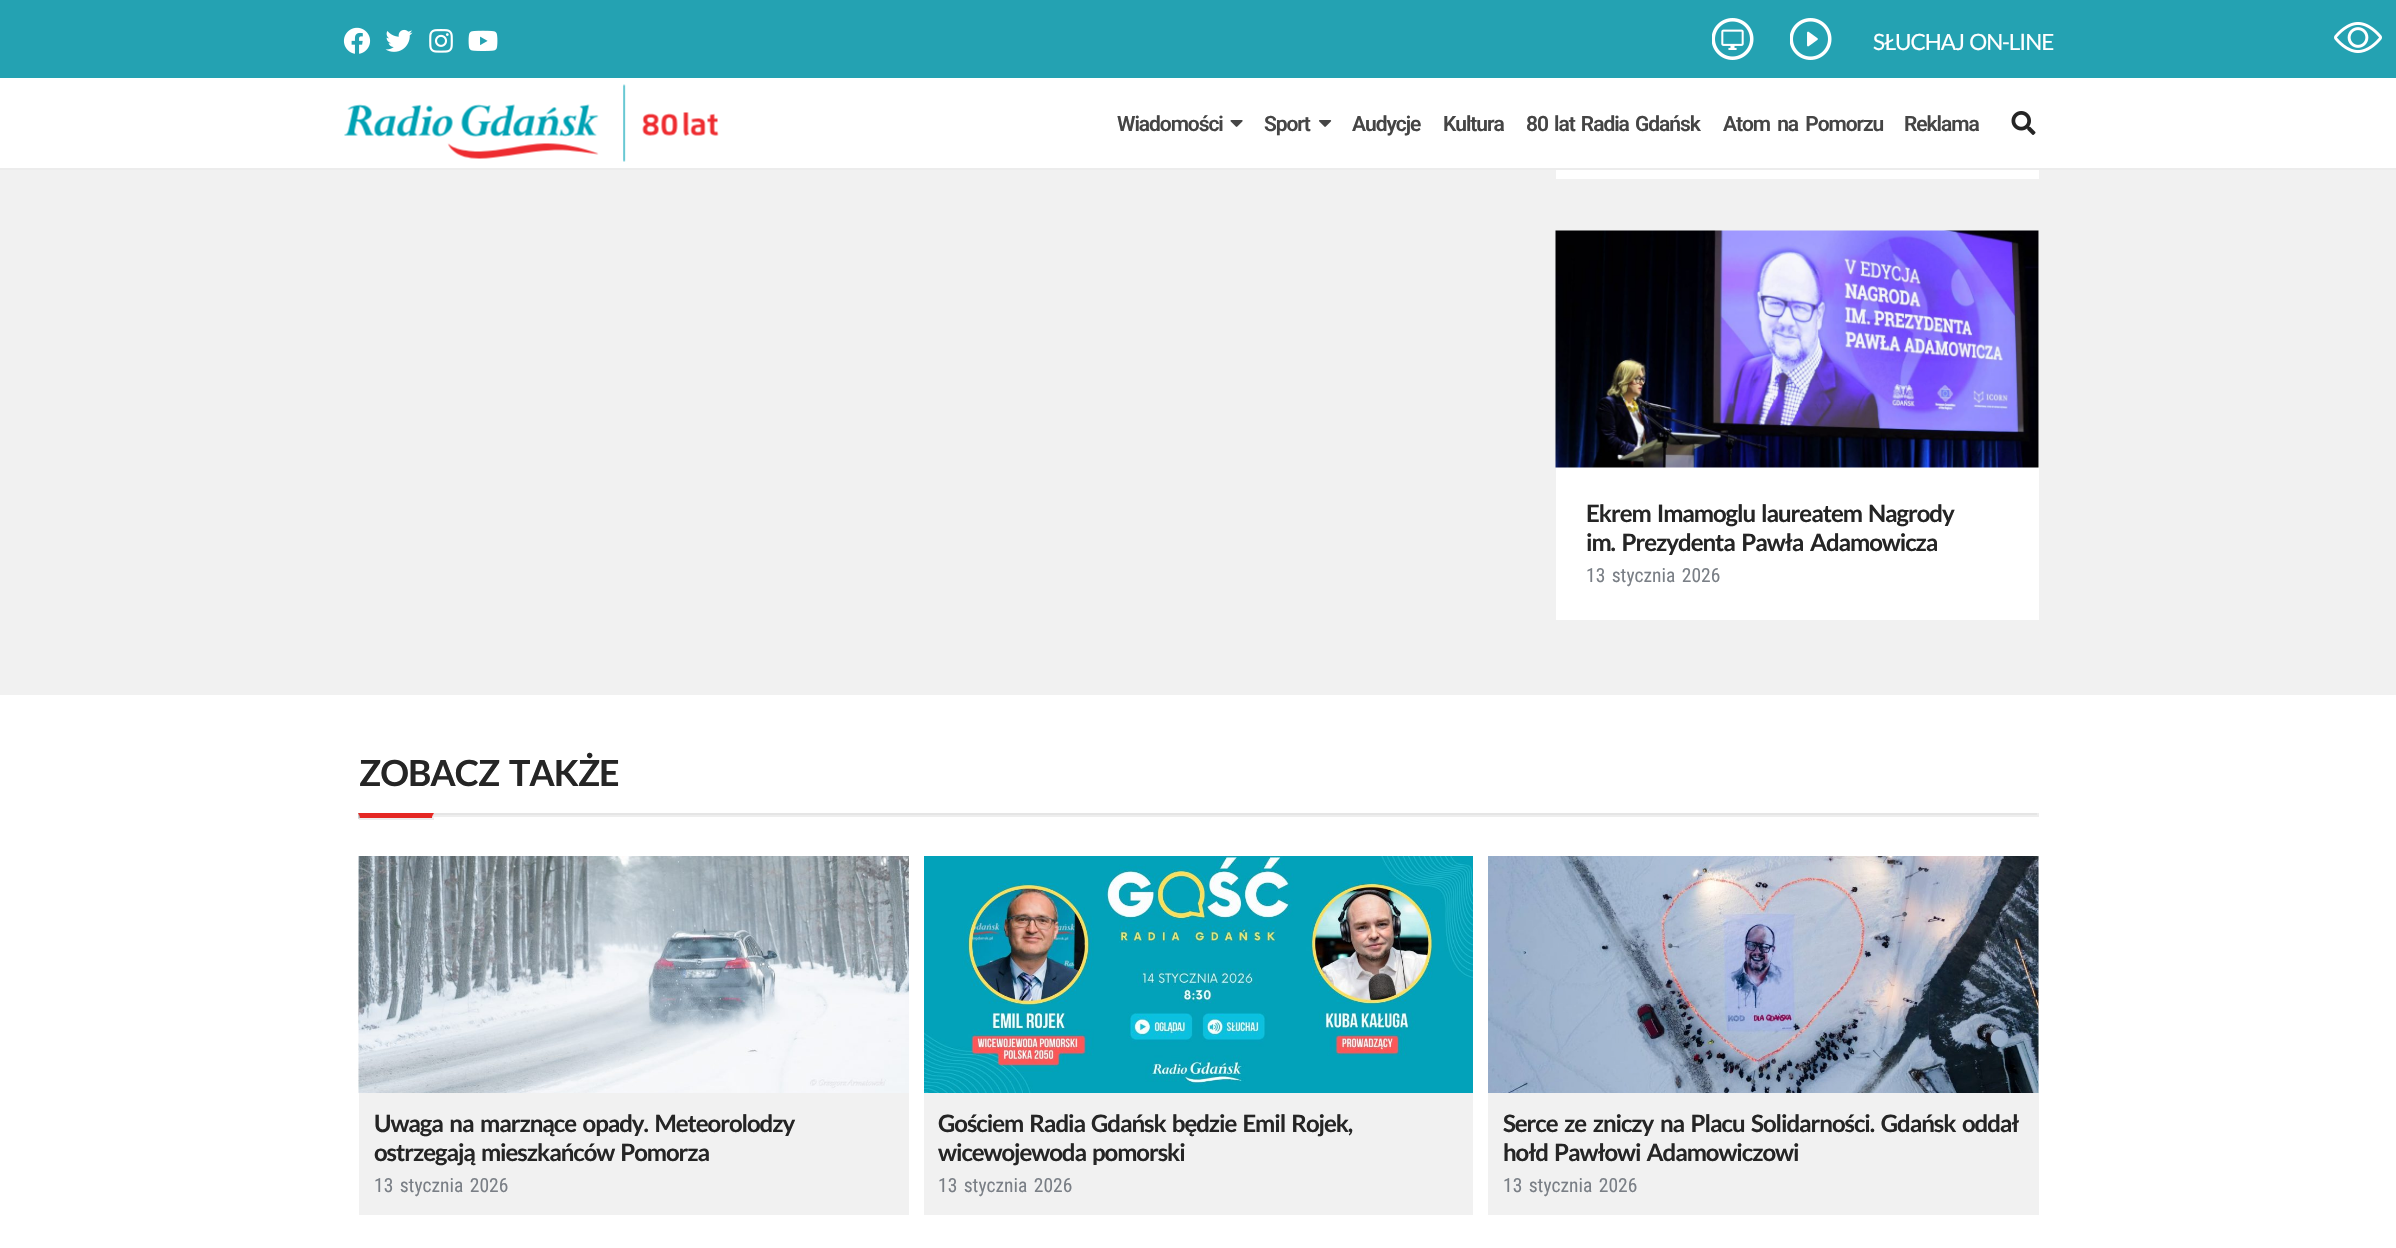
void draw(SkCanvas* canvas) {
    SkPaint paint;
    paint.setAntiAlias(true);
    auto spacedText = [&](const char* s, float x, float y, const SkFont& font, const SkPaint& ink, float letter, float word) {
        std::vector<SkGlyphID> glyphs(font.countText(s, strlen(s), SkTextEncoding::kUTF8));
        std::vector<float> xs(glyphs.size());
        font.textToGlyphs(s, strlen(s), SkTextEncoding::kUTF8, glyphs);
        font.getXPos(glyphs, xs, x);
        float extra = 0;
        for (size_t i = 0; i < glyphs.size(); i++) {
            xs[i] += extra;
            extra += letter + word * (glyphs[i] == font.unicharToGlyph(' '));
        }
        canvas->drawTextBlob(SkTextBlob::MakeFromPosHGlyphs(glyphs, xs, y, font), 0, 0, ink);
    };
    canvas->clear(0xFFFFFFFF);
    paint.setColor(0xFF24A2B2);
    canvas->drawRect(SkRect::MakeXYWH(0, 0, 2396, 78), paint);
    canvas->drawImageRect(SkImages::DeferredFromEncodedData(SkData::MakeFromFileName("img1.png")), SkRect::MakeXYWH(343, 27, 28, 27), SkSamplingOptions());
    canvas->drawImageRect(SkImages::DeferredFromEncodedData(SkData::MakeFromFileName("img2.png")), SkRect::MakeXYWH(385, 29, 28, 23), SkSamplingOptions());
    canvas->drawImageRect(SkImages::DeferredFromEncodedData(SkData::MakeFromFileName("img3.png")), SkRect::MakeXYWH(429, 29, 24, 24), SkSamplingOptions());
    canvas->drawImageRect(SkImages::DeferredFromEncodedData(SkData::MakeFromFileName("img4.png")), SkRect::MakeXYWH(468, 30, 30, 21), SkSamplingOptions());
    canvas->drawImageRect(SkImages::DeferredFromEncodedData(SkData::MakeFromFileName("img5.png")), SkRect::MakeXYWH(1712, 18, 42, 42), SkSamplingOptions());
    canvas->drawImageRect(SkImages::DeferredFromEncodedData(SkData::MakeFromFileName("img6.png")), SkRect::MakeXYWH(1790, 18, 42, 42), SkSamplingOptions());
    SkFont font1(fontMgr->matchFamilyStyle("Lato", SkFontStyle::Normal()), 22.5f);
    font1.setSubpixel(true);
    paint.setColor(0xFFFFFFFF);
    spacedText("SŁUCHAJ ON-LINE", 1873, 50, font1, paint, -1.05f, 2);
    paint.setColor(0xFFECECEC);
    canvas->drawRect(SkRect::MakeXYWH(0, 168, 2396, 2), paint);
    canvas->drawImageRect(SkImages::DeferredFromEncodedData(SkData::MakeFromFileName("img7.png")), SkRect::MakeXYWH(344, 84, 375, 78), SkSamplingOptions());
    SkFont font2(fontMgr->matchFamilyStyle("Roboto", SkFontStyle(600, SkFontStyle::kNormal_Width, SkFontStyle::kUpright_Slant)), 21);
    font2.setSubpixel(true);
    paint.setColor(0xFF454545);
    spacedText("Wiadomości", 1117, 131, font2, paint, -1.05f, 0);
    canvas->drawImageRect(SkImages::DeferredFromEncodedData(SkData::MakeFromFileName("img8.png")), SkRect::MakeXYWH(1230, 120, 13, 7), SkSamplingOptions());
    spacedText("Sport", 1264, 131, font2, paint, -1.05f, 0);
    canvas->drawImageRect(SkImages::DeferredFromEncodedData(SkData::MakeFromFileName("img9.png")), SkRect::MakeXYWH(1319, 120, 13, 7), SkSamplingOptions());
    spacedText("Audycje", 1352, 131, font2, paint, -1.05f, 0);
    spacedText("Kultura", 1443, 131, font2, paint, -1.05f, 0);
    spacedText("80 lat Radia Gdańsk", 1526, 131, font2, paint, -1.05f, 2);
    spacedText("Atom na Pomorzu", 1723, 131, font2, paint, -1.05f, 3);
    spacedText("Reklama", 1904, 131, font2, paint, -1.05f, 0);
    canvas->drawImageRect(SkImages::DeferredFromEncodedData(SkData::MakeFromFileName("img10.png")), SkRect::MakeXYWH(2011, 111, 25, 24), SkSamplingOptions());
    canvas->drawImageRect(SkImages::DeferredFromEncodedData(SkData::MakeFromFileName("img11.png")), SkRect::MakeXYWH(2334, 22, 48, 31), SkSamplingOptions());
    paint.setColor(0xFFF1F1F1);
    canvas->drawRect(SkRect::MakeXYWH(0, 170, 2396, 525), paint);
    paint.setColor(0xFFFFFFFF);
    canvas->drawRect(SkRect::MakeXYWH(1556, 170, 483, 9), paint);
    canvas->drawRect(SkRect::MakeXYWH(1556, 231, 483, 389), paint);
    canvas->drawImageRect(SkImages::DeferredFromEncodedData(SkData::MakeFromFileName("img12.png")), SkRect::MakeXYWH(1555, 230, 484, 238), SkSamplingOptions());
    SkFont font3(fontMgr->matchFamilyStyle("Lato", SkFontStyle::Bold()), 24);
    font3.setSubpixel(true);
    paint.setColor(0xFF252525);
    spacedText("Ekrem Imamoglu laureatem Nagrody", 1586, 522, font3, paint, -1.05f, 2.5f);
    spacedText("im. Prezydenta Pawła Adamowicza", 1586, 551, font3, paint, -1.05f, 3);
    SkFont font4(fontMgr->matchFamilyStyle("Roboto Condensed", SkFontStyle::Normal()), 19.5f);
    font4.setSubpixel(true);
    paint.setColor(0xFF7A7F86);
    spacedText("13 stycznia 2026", 1586, 582, font4, paint, 0, 2);
    SkFont font5(fontMgr->matchFamilyStyle("Lato", SkFontStyle::Bold()), 36);
    font5.setSubpixel(true);
    paint.setColor(0xFF252525);
    spacedText("ZOBACZ TAKŻE", 359, 786, font5, paint, -1.05f, 4);
    paint.setColor(0xFFE5E5E5);
    canvas->drawRect(SkRect::MakeXYWH(433, 813, 1606, 2), paint);
    paint.setColor(0xFFEEEEEE);
    canvas->drawRect(SkRect::MakeXYWH(2037, 813, 2, 3), paint);
    canvas->drawRect(SkRect::MakeXYWH(359, 815, 1680, 2), paint);
    paint.setColor(0xFFE52824);
    canvas->drawPath(SkPathBuilder().moveTo(358, 813).lineTo(434, 813).lineTo(432, 818).lineTo(360, 818).close().detach(), paint);
    paint.setColor(0xFFEEEEEE);
    canvas->drawPath(SkPathBuilder().moveTo(433.5f, 813).lineTo(433.5f, 819).lineTo(432, 817.5f).close().detach(), paint);
    canvas->drawRect(SkRect::MakeXYWH(359, 818, 75, 2), paint);
    paint.setColor(0xFF9F9F9F);
    canvas->drawPath(SkPathBuilder().moveTo(358.5f, 819).lineTo(358.5f, 813).lineTo(360, 817.5f).close().detach(), paint);
    paint.setColor(0xFFF1F1F1);
    canvas->drawRect(SkRect::MakeXYWH(359, 1093, 550, 122), paint);
    canvas->drawImageRect(SkImages::DeferredFromEncodedData(SkData::MakeFromFileName("img13.png")), SkRect::MakeXYWH(358, 856, 551, 237), SkSamplingOptions());
    paint.setColor(0xFF252525);
    spacedText("Uwaga na marznące opady. Meteorolodzy", 374, 1132, font3, paint, -1.05f, 3);
    spacedText("ostrzegają mieszkańców Pomorza", 374, 1161, font3, paint, -1.05f, 2.5f);
    paint.setColor(0xFF7A7F86);
    spacedText("13 stycznia 2026", 374, 1192, font4, paint, 0, 2);
    paint.setColor(0xFFF1F1F1);
    canvas->drawRect(SkRect::MakeXYWH(924, 1093, 549, 122), paint);
    canvas->drawImageRect(SkImages::DeferredFromEncodedData(SkData::MakeFromFileName("img14.png")), SkRect::MakeXYWH(924, 856, 549, 237), SkSamplingOptions());
    paint.setColor(0xFF252525);
    spacedText("Gościem Radia Gdańsk będzie Emil Rojek,", 938, 1132, font3, paint, -1.05f, 2.5f);
    spacedText("wicewojewoda pomorski", 938, 1161, font3, paint, -1.05f, 2.5f);
    paint.setColor(0xFF7A7F86);
    spacedText("13 stycznia 2026", 938, 1192, font4, paint, 0, 2);
    paint.setColor(0xFFF1F1F1);
    canvas->drawRect(SkRect::MakeXYWH(1488, 857, 551, 358), paint);
    canvas->drawImageRect(SkImages::DeferredFromEncodedData(SkData::MakeFromFileName("img15.png")), SkRect::MakeXYWH(1488, 856, 551, 237), SkSamplingOptions());
    paint.setColor(0xFF252525);
    spacedText("Serce ze zniczy na Placu Solidarności. Gdańsk oddał", 1503, 1132, font3, paint, -1.05f, 3);
    spacedText("hołd Pawłowi Adamowiczowi", 1503, 1161, font3, paint, -1.05f, 2.5f);
    paint.setColor(0xFF7A7F86);
    spacedText("13 stycznia 2026", 1503, 1192, font4, paint, 0, 2);
}
